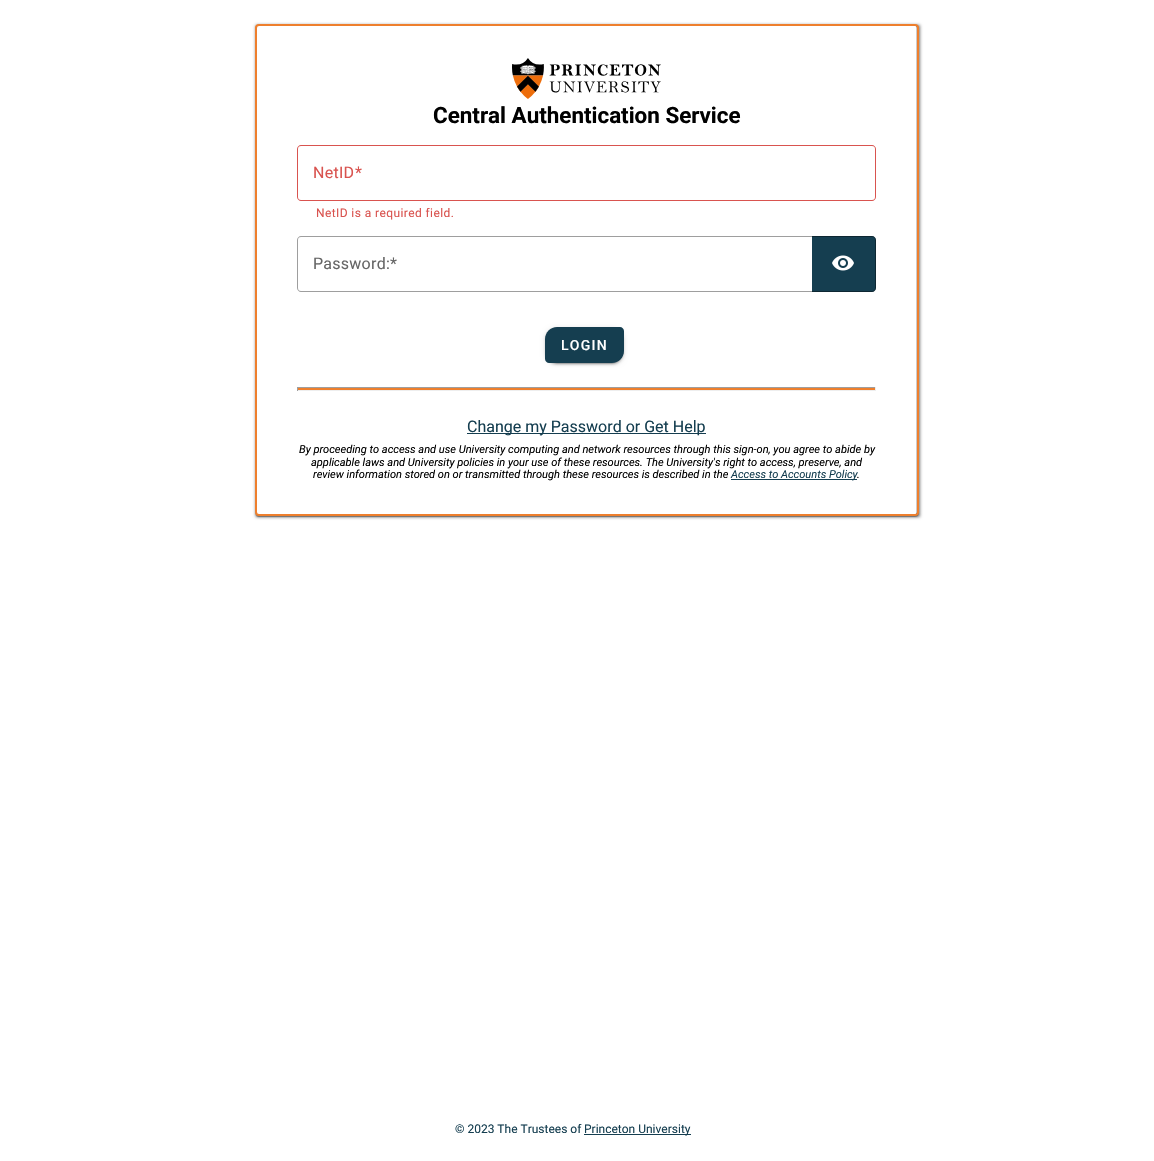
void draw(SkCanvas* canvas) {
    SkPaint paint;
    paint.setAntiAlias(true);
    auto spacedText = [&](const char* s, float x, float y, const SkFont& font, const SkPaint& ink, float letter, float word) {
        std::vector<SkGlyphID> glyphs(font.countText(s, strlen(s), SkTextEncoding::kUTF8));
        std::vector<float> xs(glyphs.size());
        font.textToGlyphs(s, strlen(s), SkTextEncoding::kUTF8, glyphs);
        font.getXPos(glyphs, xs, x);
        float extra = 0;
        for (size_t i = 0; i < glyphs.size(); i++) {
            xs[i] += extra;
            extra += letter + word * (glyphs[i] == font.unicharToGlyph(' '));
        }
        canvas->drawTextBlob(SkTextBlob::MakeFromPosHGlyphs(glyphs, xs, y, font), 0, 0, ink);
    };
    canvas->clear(0xFFFFFFFF);
    paint.setColor(0xFF888888);
    paint.setMaskFilter(SkMaskFilter::MakeBlur(kNormal_SkBlurStyle, 1.5f));
    canvas->drawRect(SkRect::MakeXYWH(256, 25, 664, 492), paint);
    paint.setMaskFilter(nullptr);
    paint.setColor(0x1F000000);
    paint.setMaskFilter(SkMaskFilter::MakeBlur(kNormal_SkBlurStyle, 1.5f));
    canvas->drawRoundRect(SkRect::MakeXYWH(255, 25, 664, 492), 4, 4, paint);
    paint.setMaskFilter(nullptr);
    paint.setColor(0x24000000);
    paint.setMaskFilter(SkMaskFilter::MakeBlur(kNormal_SkBlurStyle, 0.5f));
    canvas->drawRoundRect(SkRect::MakeXYWH(255, 25, 664, 492), 4, 4, paint);
    paint.setMaskFilter(nullptr);
    paint.setColor(0x33000000);
    paint.setMaskFilter(SkMaskFilter::MakeBlur(kNormal_SkBlurStyle, 0.5f));
    canvas->drawRoundRect(SkRect::MakeXYWH(256, 27, 662, 490), 3, 3, paint);
    paint.setMaskFilter(nullptr);
    paint.setColor(0xFFFFFFFF);
    canvas->drawRoundRect(SkRect::MakeXYWH(256, 25, 662, 490), 3, 3, paint);
    paint.setStyle(SkPaint::kStroke_Style);
    paint.setStrokeWidth(2);
    paint.setColor(0xFFEE7F2D);
    canvas->drawRoundRect(SkRect::MakeXYWH(256, 25, 662, 490), 3, 3, paint);
    paint.setStyle(SkPaint::kFill_Style);
    paint.setColor(0x33000000);
    canvas->drawRect(SkRect::MakeXYWH(916, 26, 1, 488), paint);
    canvas->drawImageRect(SkImages::DeferredFromEncodedData(SkData::MakeFromFileName("img1.png")), SkRect::MakeXYWH(512, 58, 149, 41), SkSamplingOptions());
    SkFont font1(fontMgr->matchFamilyStyle("Roboto", SkFontStyle::Bold()), 22.4f);
    font1.setSubpixel(true);
    paint.setColor(0xFF000000);
    canvas->drawString("Central Authentication Service", 433, 123, font1, paint);
    paint.setColor(0xFFD9534F);
    canvas->drawPath(SkPathBuilder(SkPathFillType::kEvenOdd).moveTo(301, 145).lineTo(309, 145).lineTo(309, 201).lineTo(301, 201).cubicTo(299, 201, 297, 199, 297, 197).lineTo(297, 149).cubicTo(297, 147, 299, 145, 301, 145).close().moveTo(301, 146).lineTo(309, 146).lineTo(309, 200).lineTo(301, 200).cubicTo(299, 200, 298, 199, 298, 197).lineTo(298, 149).cubicTo(298, 147, 299, 146, 301, 146).close().detach(), paint);
    canvas->drawRect(SkRect::MakeXYWH(309, 145, 49, 1), paint);
    canvas->drawRect(SkRect::MakeXYWH(309, 200, 49, 1), paint);
    SkFont font2(fontMgr->matchFamilyStyle("Roboto", SkFontStyle::Normal()), 16);
    font2.setSubpixel(true);
    spacedText("NetID", 313, 178, font2, paint, 0.25f, 0);
    canvas->drawPath(SkPathBuilder(SkPathFillType::kEvenOdd).moveTo(358, 145).lineTo(872, 145).cubicTo(874, 145, 876, 147, 876, 149).lineTo(876, 197).cubicTo(876, 199, 874, 201, 872, 201).lineTo(358, 201).close().moveTo(358, 146).lineTo(872, 146).cubicTo(874, 146, 875, 147, 875, 149).lineTo(875, 197).cubicTo(875, 199, 874, 200, 872, 200).lineTo(358, 200).close().detach(), paint);
    spacedText("*", 355, 178, font2, paint, 0.25f, 0);
    SkFont font3(fontMgr->matchFamilyStyle("Roboto", SkFontStyle::Normal()), 12);
    font3.setSubpixel(true);
    spacedText("NetID is a required field.", 316, 217, font3, paint, 0.4f, 0);
    paint.setColor(0xFF9E9E9E);
    canvas->drawPath(SkPathBuilder(SkPathFillType::kEvenOdd).moveTo(301, 236).lineTo(309, 236).lineTo(309, 292).lineTo(301, 292).cubicTo(299, 292, 297, 290, 297, 288).lineTo(297, 240).cubicTo(297, 238, 299, 236, 301, 236).close().moveTo(301, 237).lineTo(309, 237).lineTo(309, 291).lineTo(301, 291).cubicTo(299, 291, 298, 290, 298, 288).lineTo(298, 240).cubicTo(298, 238, 299, 237, 301, 237).close().detach(), paint);
    canvas->drawRect(SkRect::MakeXYWH(309, 236, 84, 1), paint);
    canvas->drawRect(SkRect::MakeXYWH(309, 291, 84, 1), paint);
    paint.setColor(0xFF666666);
    spacedText("Password:", 313, 269, font2, paint, 0.25f, 0);
    paint.setColor(0xFF153E50);
    canvas->drawPath(SkPathBuilder().moveTo(812, 236).lineTo(872, 236).cubicTo(874, 236, 876, 238, 876, 240).lineTo(876, 288).cubicTo(876, 290, 874, 292, 872, 292).lineTo(812, 292).close().detach(), paint);
    canvas->drawImageRect(SkImages::DeferredFromEncodedData(SkData::MakeFromFileName("img2.png")), SkRect::MakeXYWH(832, 255, 22, 16), SkSamplingOptions());
    paint.setColor(0x61000000);
    canvas->drawPath(SkPathBuilder(SkPathFillType::kEvenOdd).moveTo(393, 236).lineTo(872, 236).cubicTo(874, 236, 876, 238, 876, 240).lineTo(876, 288).cubicTo(876, 290, 874, 292, 872, 292).lineTo(393, 292).close().moveTo(393, 237).lineTo(872, 237).cubicTo(874, 237, 875, 238, 875, 240).lineTo(875, 288).cubicTo(875, 290, 874, 291, 872, 291).lineTo(393, 291).close().detach(), paint);
    paint.setColor(0xFF666666);
    spacedText("*", 390, 269, font2, paint, 0.25f, 0);
    paint.setColor(0x1F000000);
    paint.setMaskFilter(SkMaskFilter::MakeBlur(kNormal_SkBlurStyle, 2.5f));
    canvas->drawRoundRect(SkRect::MakeXYWH(545, 328, 79, 36), 12, 12, paint);
    paint.setMaskFilter(nullptr);
    paint.setColor(0x24000000);
    paint.setMaskFilter(SkMaskFilter::MakeBlur(kNormal_SkBlurStyle, 1));
    canvas->drawRoundRect(SkRect::MakeXYWH(545, 329, 79, 36), 12, 12, paint);
    paint.setMaskFilter(nullptr);
    paint.setColor(0x33000000);
    paint.setMaskFilter(SkMaskFilter::MakeBlur(kNormal_SkBlurStyle, 0.5f));
    canvas->drawRoundRect(SkRect::MakeXYWH(547, 332, 75, 32), 10, 10, paint);
    paint.setMaskFilter(nullptr);
    paint.setColor(0xFF153E50);
    canvas->drawPath(SkPathBuilder().moveTo(557, 327).lineTo(620, 327).cubicTo(622, 327, 624, 329, 624, 331).lineTo(624, 351).cubicTo(624, 357.5f, 618.5f, 363, 612, 363).lineTo(549, 363).cubicTo(547, 363, 545, 361, 545, 359).lineTo(545, 339).cubicTo(545, 332.5f, 550.5f, 327, 557, 327).close().detach(), paint);
    SkFont font4(fontMgr->matchFamilyStyle("Roboto", SkFontStyle(500, SkFontStyle::kNormal_Width, SkFontStyle::kUpright_Slant)), 14);
    font4.setSubpixel(true);
    paint.setColor(0xFFFFFFFF);
    spacedText("LOGIN", 561, 350, font4, paint, 1.25f, 0);
    paint.setColor(0xFFEE7F2D);
    canvas->drawRect(SkRect::MakeXYWH(297, 388, 579, 2), paint);
    paint.setColor(0xFF9F9F9F);
    canvas->drawRect(SkRect::MakeXYWH(297, 387, 579, 1), paint);
    paint.setColor(0xFFEEEEEE);
    canvas->drawRect(SkRect::MakeXYWH(875, 387, 1, 4), paint);
    canvas->drawRect(SkRect::MakeXYWH(297, 390, 579, 1), paint);
    paint.setColor(0xFF9F9F9F);
    canvas->drawRect(SkRect::MakeXYWH(297, 387, 1, 4), paint);
    paint.setColor(0xFF153E50);
    canvas->drawRect(SkRect::MakeXYWH(467, 433, 239, 1), paint);
    canvas->drawString("Change my Password or Get Help", 467, 432, font2, paint);
    SkFont font5(fontMgr->matchFamilyStyle("Roboto", SkFontStyle::Italic()), 11.05f);
    font5.setSubpixel(true);
    paint.setColor(0xFF000000);
    canvas->drawString("By proceeding to access and use University computing and network resources through this sign-on, you agree to abide by", 299, 453, font5, paint);
    canvas->drawString("applicable laws and University policies in your use of these resources. The University's right to access, preserve, and", 311, 466, font5, paint);
    canvas->drawString("review information stored on or transmitted through these resources is described in the", 313, 478, font5, paint);
    paint.setColor(0xFF153E50);
    canvas->drawRect(SkRect::MakeXYWH(731, 479, 126, 1), paint);
    canvas->drawString("Access to Accounts Policy", 731, 478, font5, paint);
    paint.setColor(0xFF000000);
    canvas->drawString(".", 857, 478, font5, paint);
    paint.setColor(0xFF153E50);
    canvas->drawString("© 2023 The Trustees of", 455, 1133, font3, paint);
    canvas->drawRect(SkRect::MakeXYWH(584, 1134, 107, 1), paint);
    canvas->drawString("Princeton University", 584, 1133, font3, paint);
}
